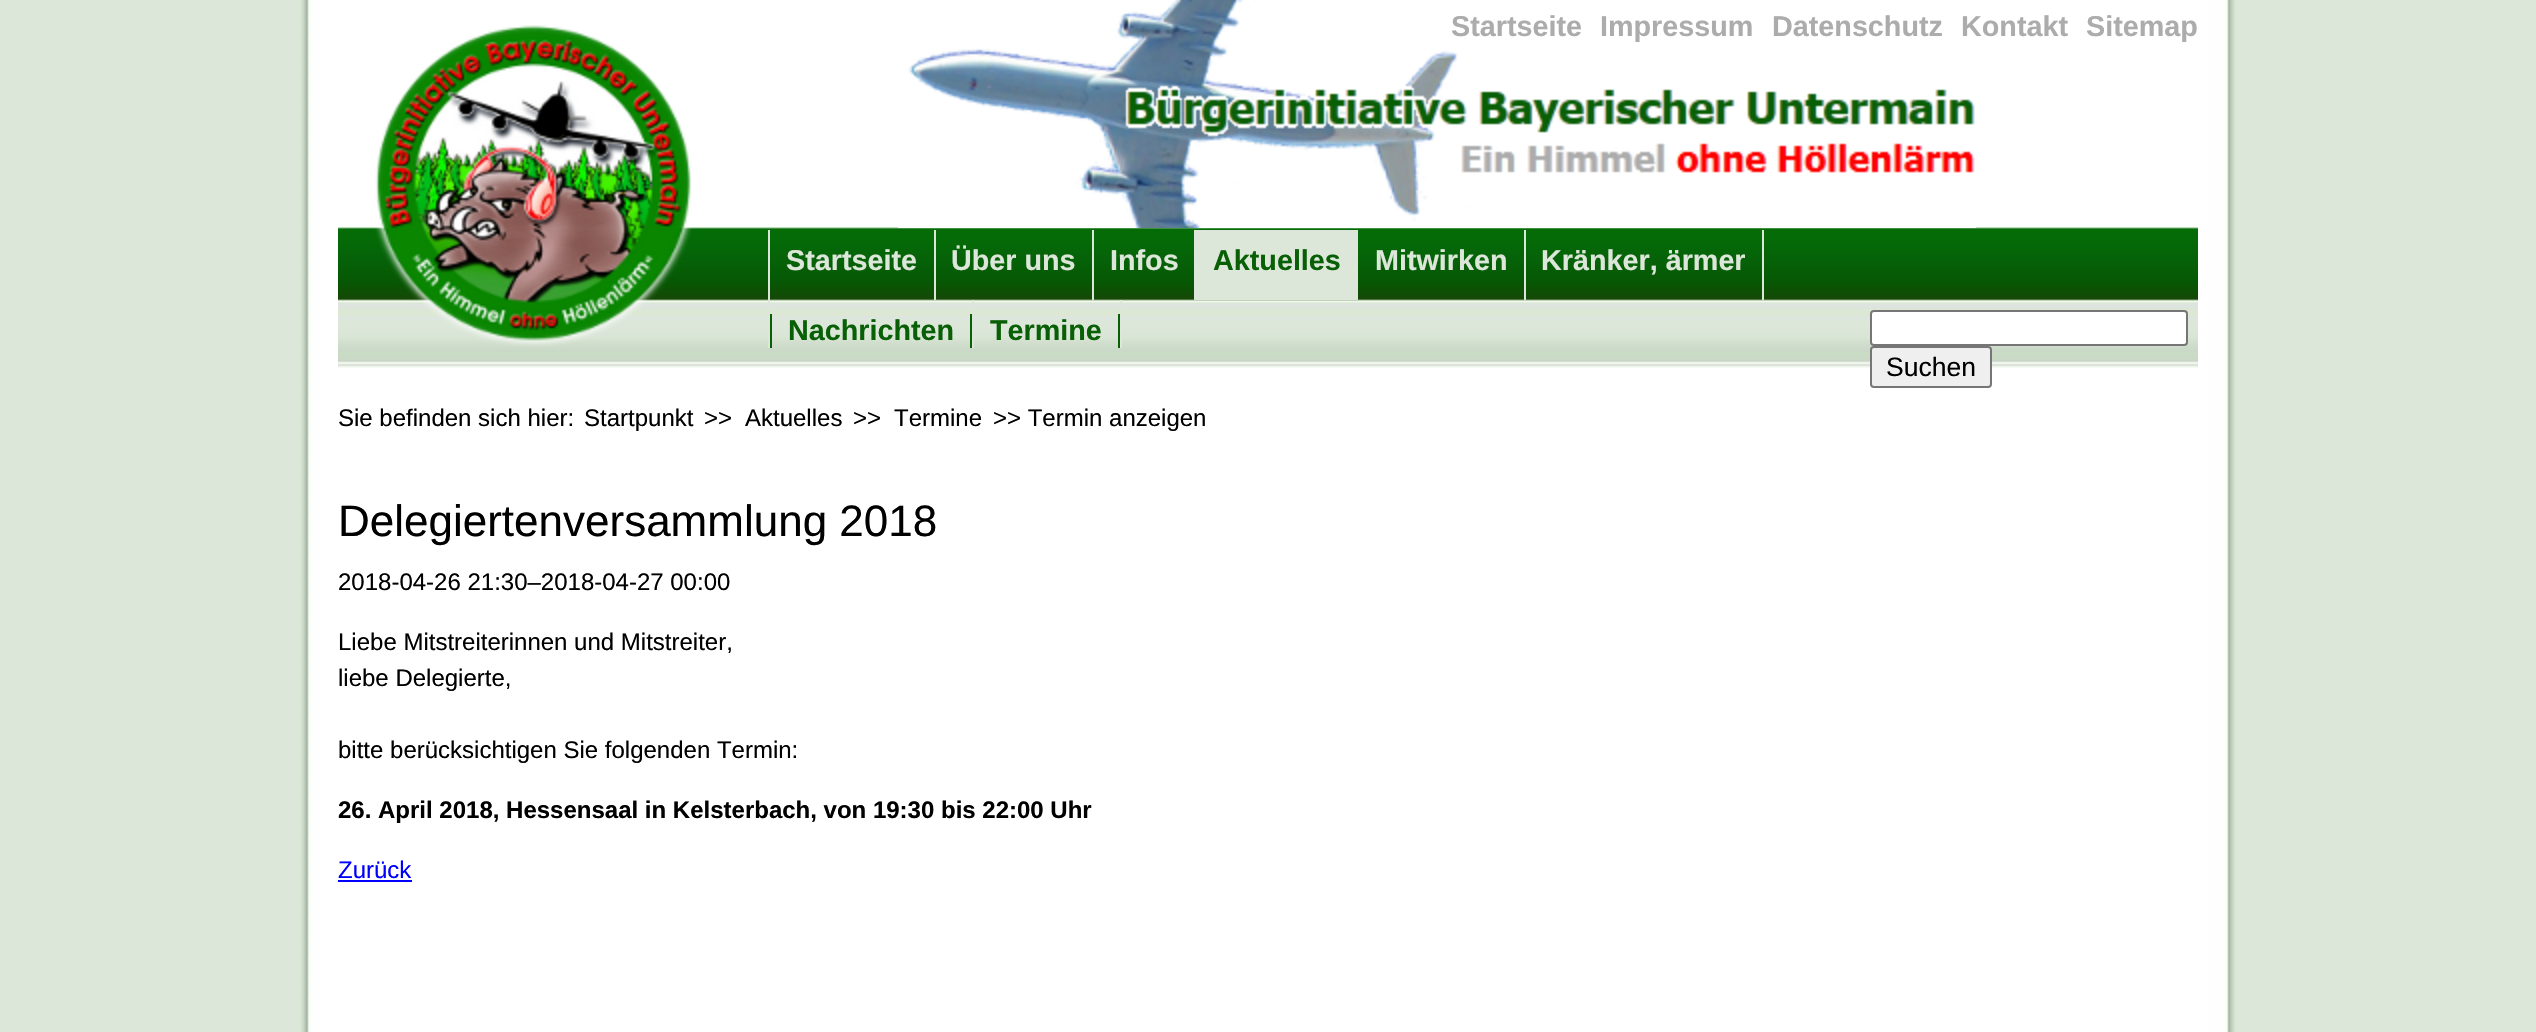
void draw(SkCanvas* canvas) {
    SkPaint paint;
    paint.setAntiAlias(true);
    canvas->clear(0xFFDCE7D9);
    canvas->drawImageRect(SkImages::DeferredFromEncodedData(SkData::MakeFromFileName("img1.png")), SkRect::MakeXYWH(300, 0, 1935, 1032), SkSamplingOptions());
    canvas->drawImageRect(SkImages::DeferredFromEncodedData(SkData::MakeFromFileName("img2.png")), SkRect::MakeXYWH(338, 225, 1860, 143), SkSamplingOptions());
    canvas->drawImageRect(SkImages::DeferredFromEncodedData(SkData::MakeFromFileName("img3.png")), SkRect::MakeXYWH(898, 0, 1078, 228), SkSamplingOptions());
    canvas->drawImageRect(SkImages::DeferredFromEncodedData(SkData::MakeFromFileName("img4.png")), SkRect::MakeXYWH(375, 25, 317, 322), SkSamplingOptions());
    paint.setColor(0xFFDCE7D9);
    canvas->drawRect(SkRect::MakeXYWH(934, 230, 2, 70), paint);
    canvas->drawRect(SkRect::MakeXYWH(768, 230, 2, 118), paint);
    SkFont font1(fontMgr->matchFamilyStyle("Liberation Sans", SkFontStyle::Bold()), 28.75f);
    font1.setSubpixel(true);
    canvas->drawString("Startseite", 786, 270, font1, paint);
    canvas->drawRect(SkRect::MakeXYWH(1092, 230, 2, 70), paint);
    canvas->drawString("Über uns", 951, 270, font1, paint);
    canvas->drawRect(SkRect::MakeXYWH(1196, 230, 162, 70), paint);
    paint.setColor(0xFF095F06);
    canvas->drawString("Aktuelles", 1213, 270, font1, paint);
    paint.setColor(0xFFDCE7D9);
    canvas->drawRect(SkRect::MakeXYWH(972, 300, 2, 48), paint);
    paint.setColor(0xFF095F06);
    canvas->drawRect(SkRect::MakeXYWH(970, 314, 2, 34), paint);
    canvas->drawRect(SkRect::MakeXYWH(770, 314, 2, 34), paint);
    canvas->drawString("Nachrichten", 788, 340, font1, paint);
    paint.setColor(0xFFDCE7D9);
    canvas->drawRect(SkRect::MakeXYWH(1120, 300, 2, 48), paint);
    paint.setColor(0xFF095F06);
    canvas->drawRect(SkRect::MakeXYWH(1118, 314, 2, 34), paint);
    canvas->drawString("Termine", 990, 340, font1, paint);
    paint.setColor(0xFFDCE7D9);
    canvas->drawRect(SkRect::MakeXYWH(1194, 230, 2, 70), paint);
    canvas->drawString("Infos", 1110, 270, font1, paint);
    canvas->drawRect(SkRect::MakeXYWH(1524, 230, 2, 70), paint);
    canvas->drawString("Mitwirken", 1375, 270, font1, paint);
    canvas->drawRect(SkRect::MakeXYWH(1762, 230, 2, 70), paint);
    canvas->drawString("Kränker, ärmer", 1541, 270, font1, paint);
    paint.setColor(0xFFACACAC);
    canvas->drawString("Startseite", 1451, 36, font1, paint);
    canvas->drawString("Impressum", 1600, 36, font1, paint);
    canvas->drawString("Datenschutz", 1772, 36, font1, paint);
    canvas->drawString("Kontakt", 1961, 36, font1, paint);
    canvas->drawString("Sitemap", 2086, 36, font1, paint);
    paint.setColor(0xFFFFFFFF);
    canvas->drawRoundRect(SkRect::MakeXYWH(1871, 311, 316, 34), 3, 3, paint);
    paint.setStyle(SkPaint::kStroke_Style);
    paint.setStrokeWidth(2);
    paint.setColor(0xFF767676);
    canvas->drawRoundRect(SkRect::MakeXYWH(1871, 311, 316, 34), 3, 3, paint);
    paint.setStyle(SkPaint::kFill_Style);
    paint.setColor(0xFFEFEFEF);
    canvas->drawRoundRect(SkRect::MakeXYWH(1871, 347, 120, 40), 3, 3, paint);
    paint.setStyle(SkPaint::kStroke_Style);
    paint.setColor(0xFF767676);
    canvas->drawRoundRect(SkRect::MakeXYWH(1871, 347, 120, 40), 3, 3, paint);
    SkFont font2(fontMgr->matchFamilyStyle("Liberation Sans", SkFontStyle::Normal()), 26.5f);
    font2.setSubpixel(true);
    paint.setStyle(SkPaint::kFill_Style);
    paint.setColor(0xFF000000);
    canvas->drawString("Suchen", 1886, 376, font2, paint);
    SkFont font3(fontMgr->matchFamilyStyle("Liberation Sans", SkFontStyle::Normal()), 24);
    font3.setSubpixel(true);
    canvas->drawString("Sie befinden sich hier:", 338, 426, font3, paint);
    canvas->drawString("Startpunkt", 584, 426, font3, paint);
    canvas->drawString(">>", 704, 426, font3, paint);
    canvas->drawString("Aktuelles", 745, 426, font3, paint);
    canvas->drawString(">>", 853, 426, font3, paint);
    canvas->drawString("Termine", 894, 426, font3, paint);
    canvas->drawString(">> Termin anzeigen", 993, 426, font3, paint);
    SkFont font4(fontMgr->matchFamilyStyle("Liberation Sans", SkFontStyle::Normal()), 44);
    font4.setSubpixel(true);
    canvas->drawString("Delegiertenversammlung 2018", 338, 536, font4, paint);
    canvas->drawString("2018-04-26 21:30–2018-04-27 00:00", 338, 590, font3, paint);
    canvas->drawString("Liebe Mitstreiterinnen und Mitstreiter,", 338, 650, font3, paint);
    canvas->drawString("liebe Delegierte,", 338, 686, font3, paint);
    canvas->drawString("bitte berücksichtigen Sie folgenden Termin:", 338, 758, font3, paint);
    SkFont font5(fontMgr->matchFamilyStyle("Liberation Sans", SkFontStyle::Bold()), 24);
    font5.setSubpixel(true);
    canvas->drawString("26. April 2018, Hessensaal in Kelsterbach, von 19:30 bis 22:00 Uhr", 338, 818, font5, paint);
    paint.setColor(0xFF0000FF);
    canvas->drawString("Zurück", 338, 878, font3, paint);
    canvas->drawRect(SkRect::MakeXYWH(338, 880, 74, 2), paint);
}
